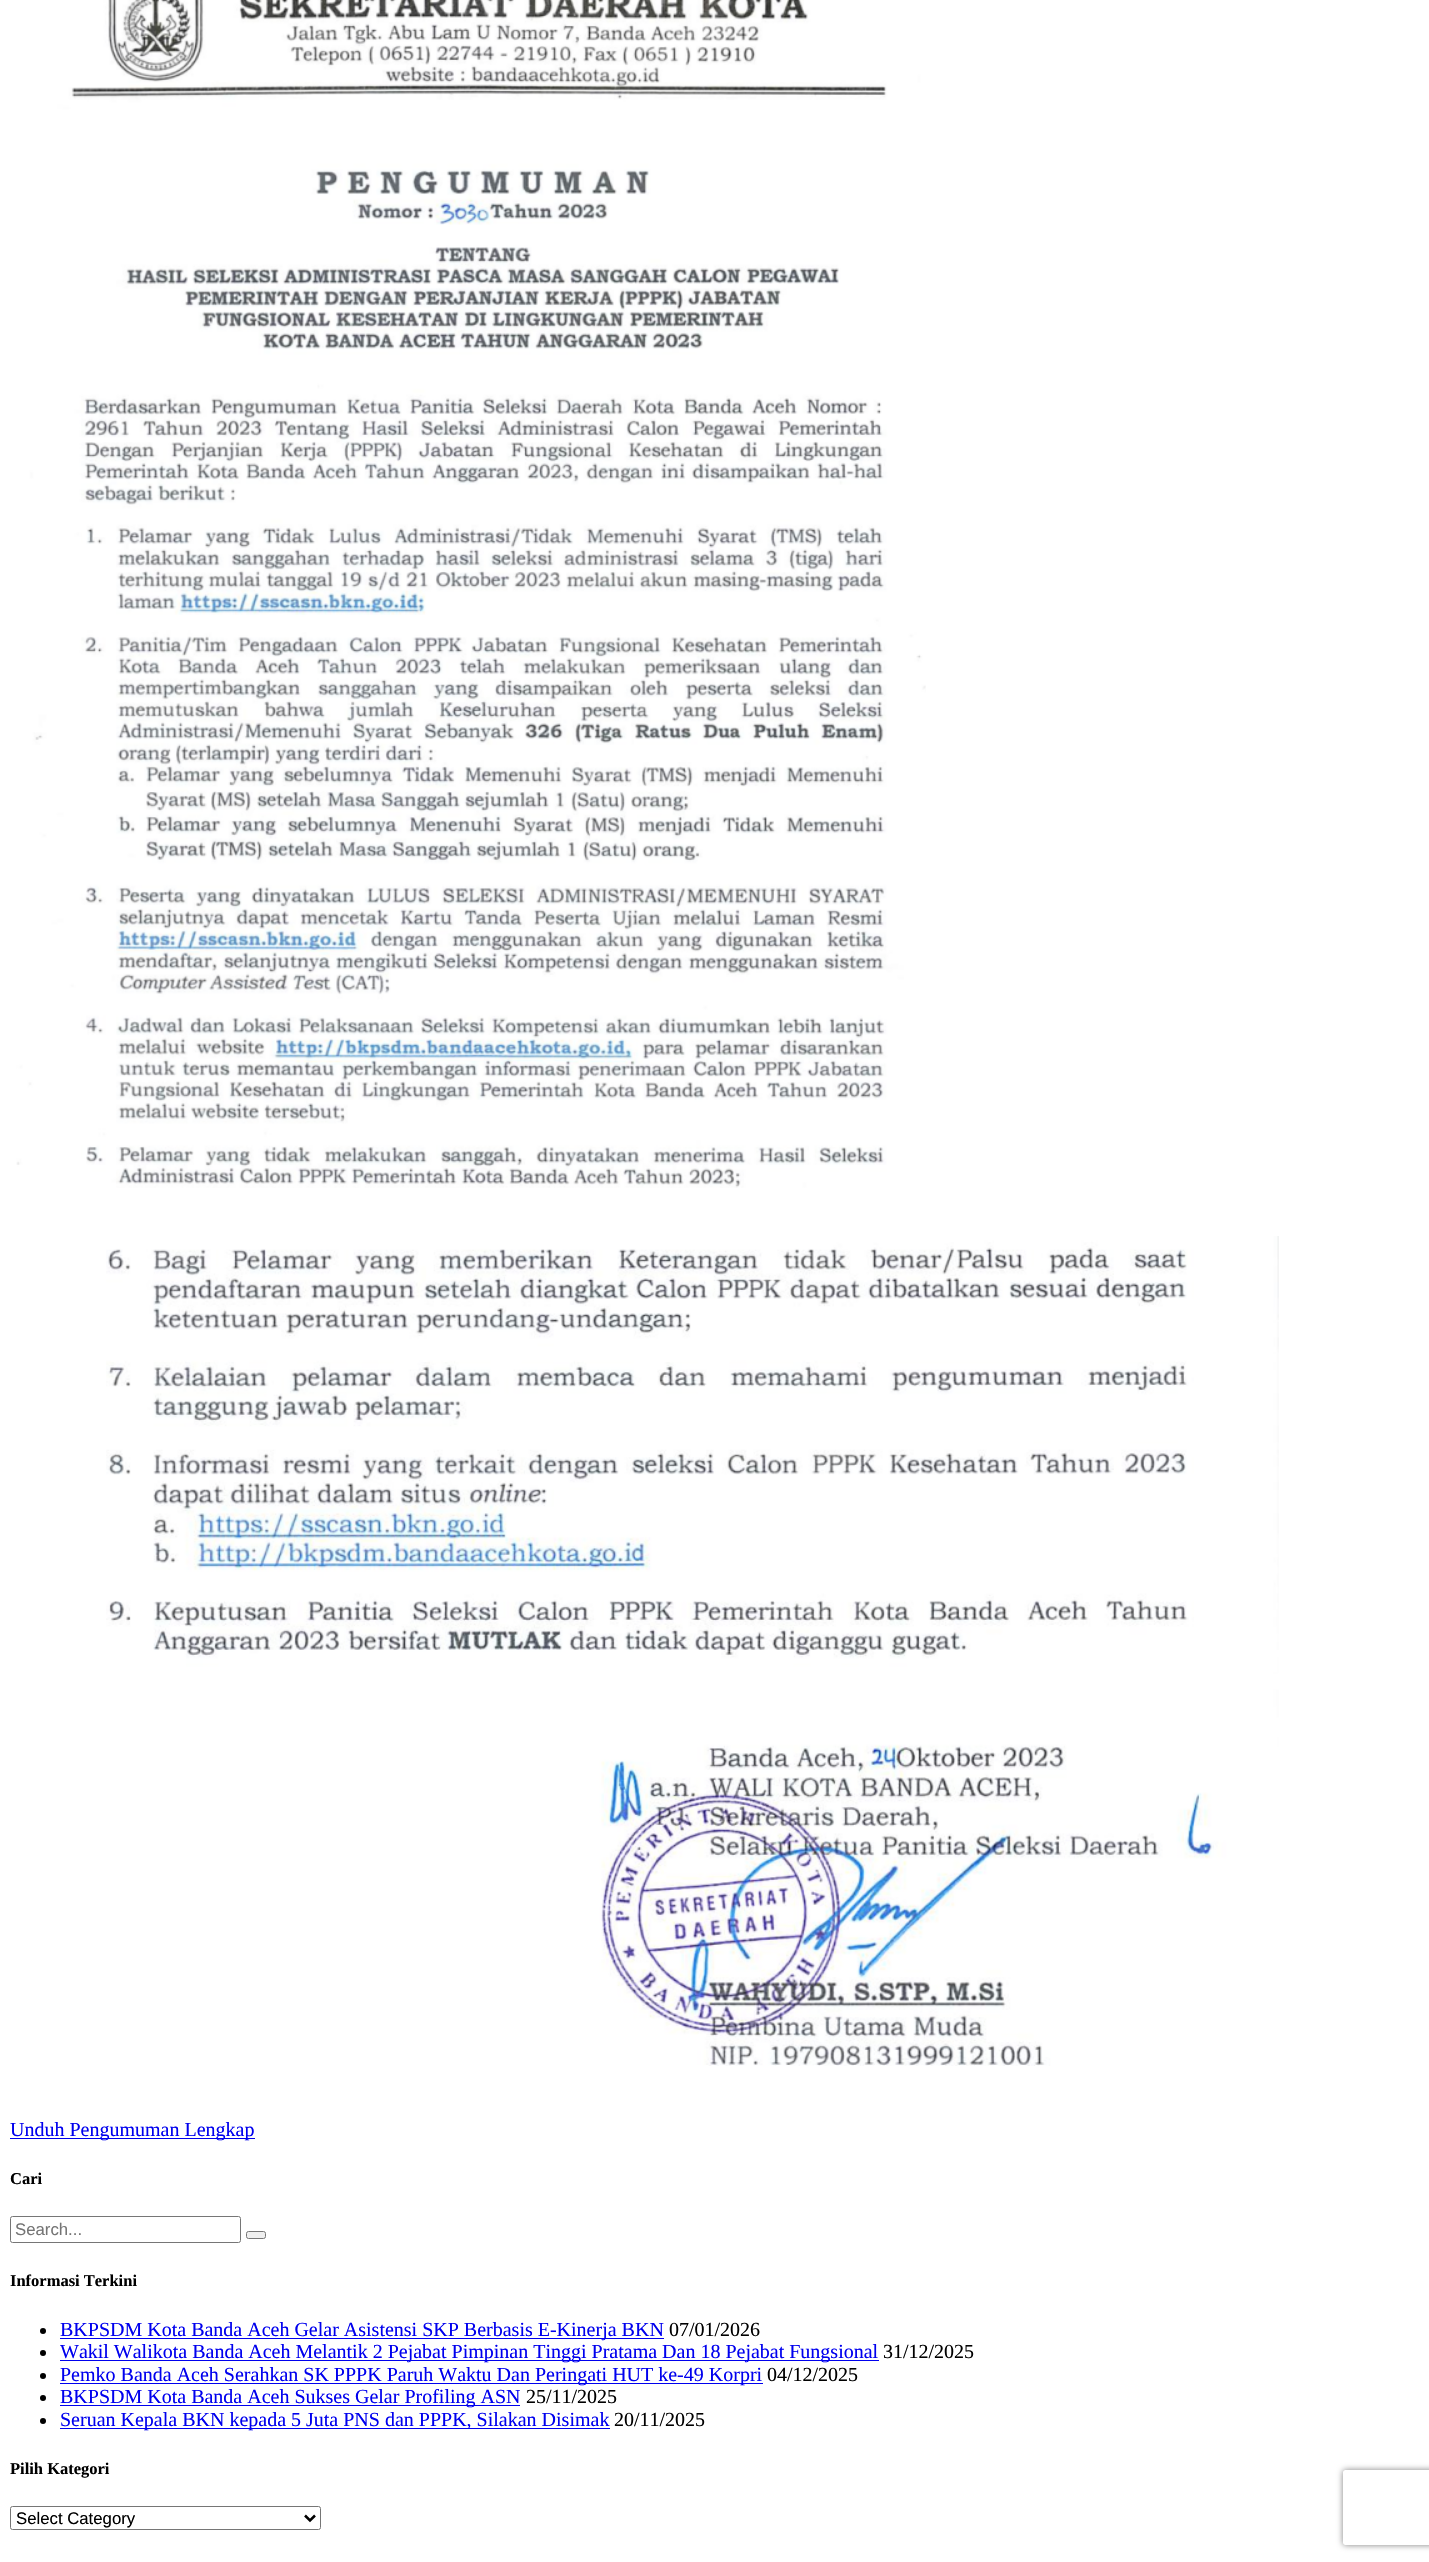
void draw(SkCanvas* canvas) {
    SkPaint paint;
    paint.setAntiAlias(true);
    canvas->clear(0xFFFFFFFF);
    canvas->drawImageRect(SkImages::DeferredFromEncodedData(SkData::MakeFromFileName("img1.png")), SkRect::MakeXYWH(16, 0, 910, 1188), SkSamplingOptions());
    canvas->drawImageRect(SkImages::DeferredFromEncodedData(SkData::MakeFromFileName("img2.png")), SkRect::MakeXYWH(106, 1236, 1173, 830), SkSamplingOptions());
    paint.setColor(0xFF0000EE);
    canvas->drawRect(SkRect::MakeXYWH(10, 2138, 245, 1), paint);
    SkFont font1(fontMgr->matchFamilyStyle("Liberation Serif", SkFontStyle::Normal()), 20);
    font1.setSubpixel(true);
    canvas->drawString("Unduh Pengumuman Lengkap", 10, 2136, font1, paint);
    SkFont font2(fontMgr->matchFamilyStyle("Liberation Serif", SkFontStyle::Bold()), 16.5f);
    font2.setSubpixel(true);
    paint.setColor(0xFF000000);
    canvas->drawString("Cari", 10, 2184, font2, paint);
    paint.setStyle(SkPaint::kStroke_Style);
    paint.setStrokeWidth(1);
    paint.setColor(0xFF767676);
    canvas->drawRoundRect(SkRect::MakeXYWH(10.5f, 2216.5f, 230, 26), 2, 2, paint);
    SkFont font3(fontMgr->matchFamilyStyle("Liberation Sans", SkFontStyle::Normal()), 16.75f);
    font3.setSubpixel(true);
    paint.setStyle(SkPaint::kFill_Style);
    paint.setColor(0xFF757575);
    canvas->drawString("Search...", 15, 2235, font3, paint);
    paint.setColor(0xFFEFEFEF);
    canvas->drawRoundRect(SkRect::MakeXYWH(246.5f, 2231.5f, 19, 7), 2, 2, paint);
    paint.setStyle(SkPaint::kStroke_Style);
    paint.setColor(0xFF767676);
    canvas->drawRoundRect(SkRect::MakeXYWH(246.5f, 2231.5f, 19, 7), 2, 2, paint);
    paint.setStyle(SkPaint::kFill_Style);
    paint.setColor(0xFF000000);
    canvas->drawString("Informasi Terkini", 10, 2286, font2, paint);
    canvas->drawCircle(43, 2331, 3, paint);
    paint.setColor(0xFF0000EE);
    canvas->drawRect(SkRect::MakeXYWH(60, 2338, 604, 1), paint);
    canvas->drawString("BKPSDM Kota Banda Aceh Gelar Asistensi SKP Berbasis E-Kinerja BKN", 60, 2336, font1, paint);
    paint.setColor(0xFF000000);
    canvas->drawString("07/01/2026", 669, 2336, font1, paint);
    canvas->drawCircle(43, 2353, 3, paint);
    paint.setColor(0xFF0000EE);
    canvas->drawRect(SkRect::MakeXYWH(60, 2360, 819, 1), paint);
    canvas->drawString("Wakil Walikota Banda Aceh Melantik 2 Pejabat Pimpinan Tinggi Pratama Dan 18 Pejabat Fungsional", 60, 2358, font1, paint);
    paint.setColor(0xFF000000);
    canvas->drawString("31/12/2025", 883, 2358, font1, paint);
    canvas->drawCircle(43, 2376, 3, paint);
    paint.setColor(0xFF0000EE);
    canvas->drawRect(SkRect::MakeXYWH(60, 2383, 703, 1), paint);
    canvas->drawString("Pemko Banda Aceh Serahkan SK PPPK Paruh Waktu Dan Peringati HUT ke-49 Korpri", 60, 2381, font1, paint);
    paint.setColor(0xFF000000);
    canvas->drawString("04/12/2025", 767, 2381, font1, paint);
    canvas->drawCircle(43, 2398, 3, paint);
    paint.setColor(0xFF0000EE);
    canvas->drawRect(SkRect::MakeXYWH(60, 2405, 460, 1), paint);
    canvas->drawString("BKPSDM Kota Banda Aceh Sukses Gelar Profiling ASN", 60, 2403, font1, paint);
    paint.setColor(0xFF000000);
    canvas->drawString("25/11/2025", 526, 2403, font1, paint);
    canvas->drawCircle(43, 2421, 3, paint);
    paint.setColor(0xFF0000EE);
    canvas->drawRect(SkRect::MakeXYWH(60, 2428, 550, 1), paint);
    canvas->drawString("Seruan Kepala BKN kepada 5 Juta PNS dan PPPK, Silakan Disimak", 60, 2426, font1, paint);
    paint.setColor(0xFF000000);
    canvas->drawString("20/11/2025", 614, 2426, font1, paint);
    canvas->drawString("Pilih Kategori", 10, 2474, font2, paint);
    paint.setStyle(SkPaint::kStroke_Style);
    paint.setColor(0xFF767676);
    canvas->drawRoundRect(SkRect::MakeXYWH(10.5f, 2506.5f, 310, 23), 2, 2, paint);
    paint.setStrokeWidth(2.5f);
    paint.setColor(0xFF000000);
    canvas->drawPath(SkPathBuilder().moveTo(305, 2515.5f).lineTo(310, 2520.5f).lineTo(315, 2515.5f).detach(), paint);
    paint.setStyle(SkPaint::kFill_Style);
    canvas->drawString("Select Category", 16, 2524, font3, paint);
    canvas->save();
    canvas->clipPath(SkPathBuilder(SkPathFillType::kEvenOdd).moveTo(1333, 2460).lineTo(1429, 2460).lineTo(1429, 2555).lineTo(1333, 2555).close().moveTo(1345.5f, 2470).lineTo(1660.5f, 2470).cubicTo(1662, 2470, 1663, 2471, 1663, 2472.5f).lineTo(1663, 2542.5f).cubicTo(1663, 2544, 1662, 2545, 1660.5f, 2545).lineTo(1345.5f, 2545).cubicTo(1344, 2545, 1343, 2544, 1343, 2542.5f).lineTo(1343, 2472.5f).cubicTo(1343, 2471, 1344, 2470, 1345.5f, 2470).close().detach(), true);
    paint.setColor(0xFF808080);
    paint.setMaskFilter(SkMaskFilter::MakeBlur(kNormal_SkBlurStyle, 3));
    canvas->drawRoundRect(SkRect::MakeXYWH(1343, 2470, 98, 75), 2.5f, 2.5f, paint);
    paint.setMaskFilter(nullptr);
    canvas->restore();
}
